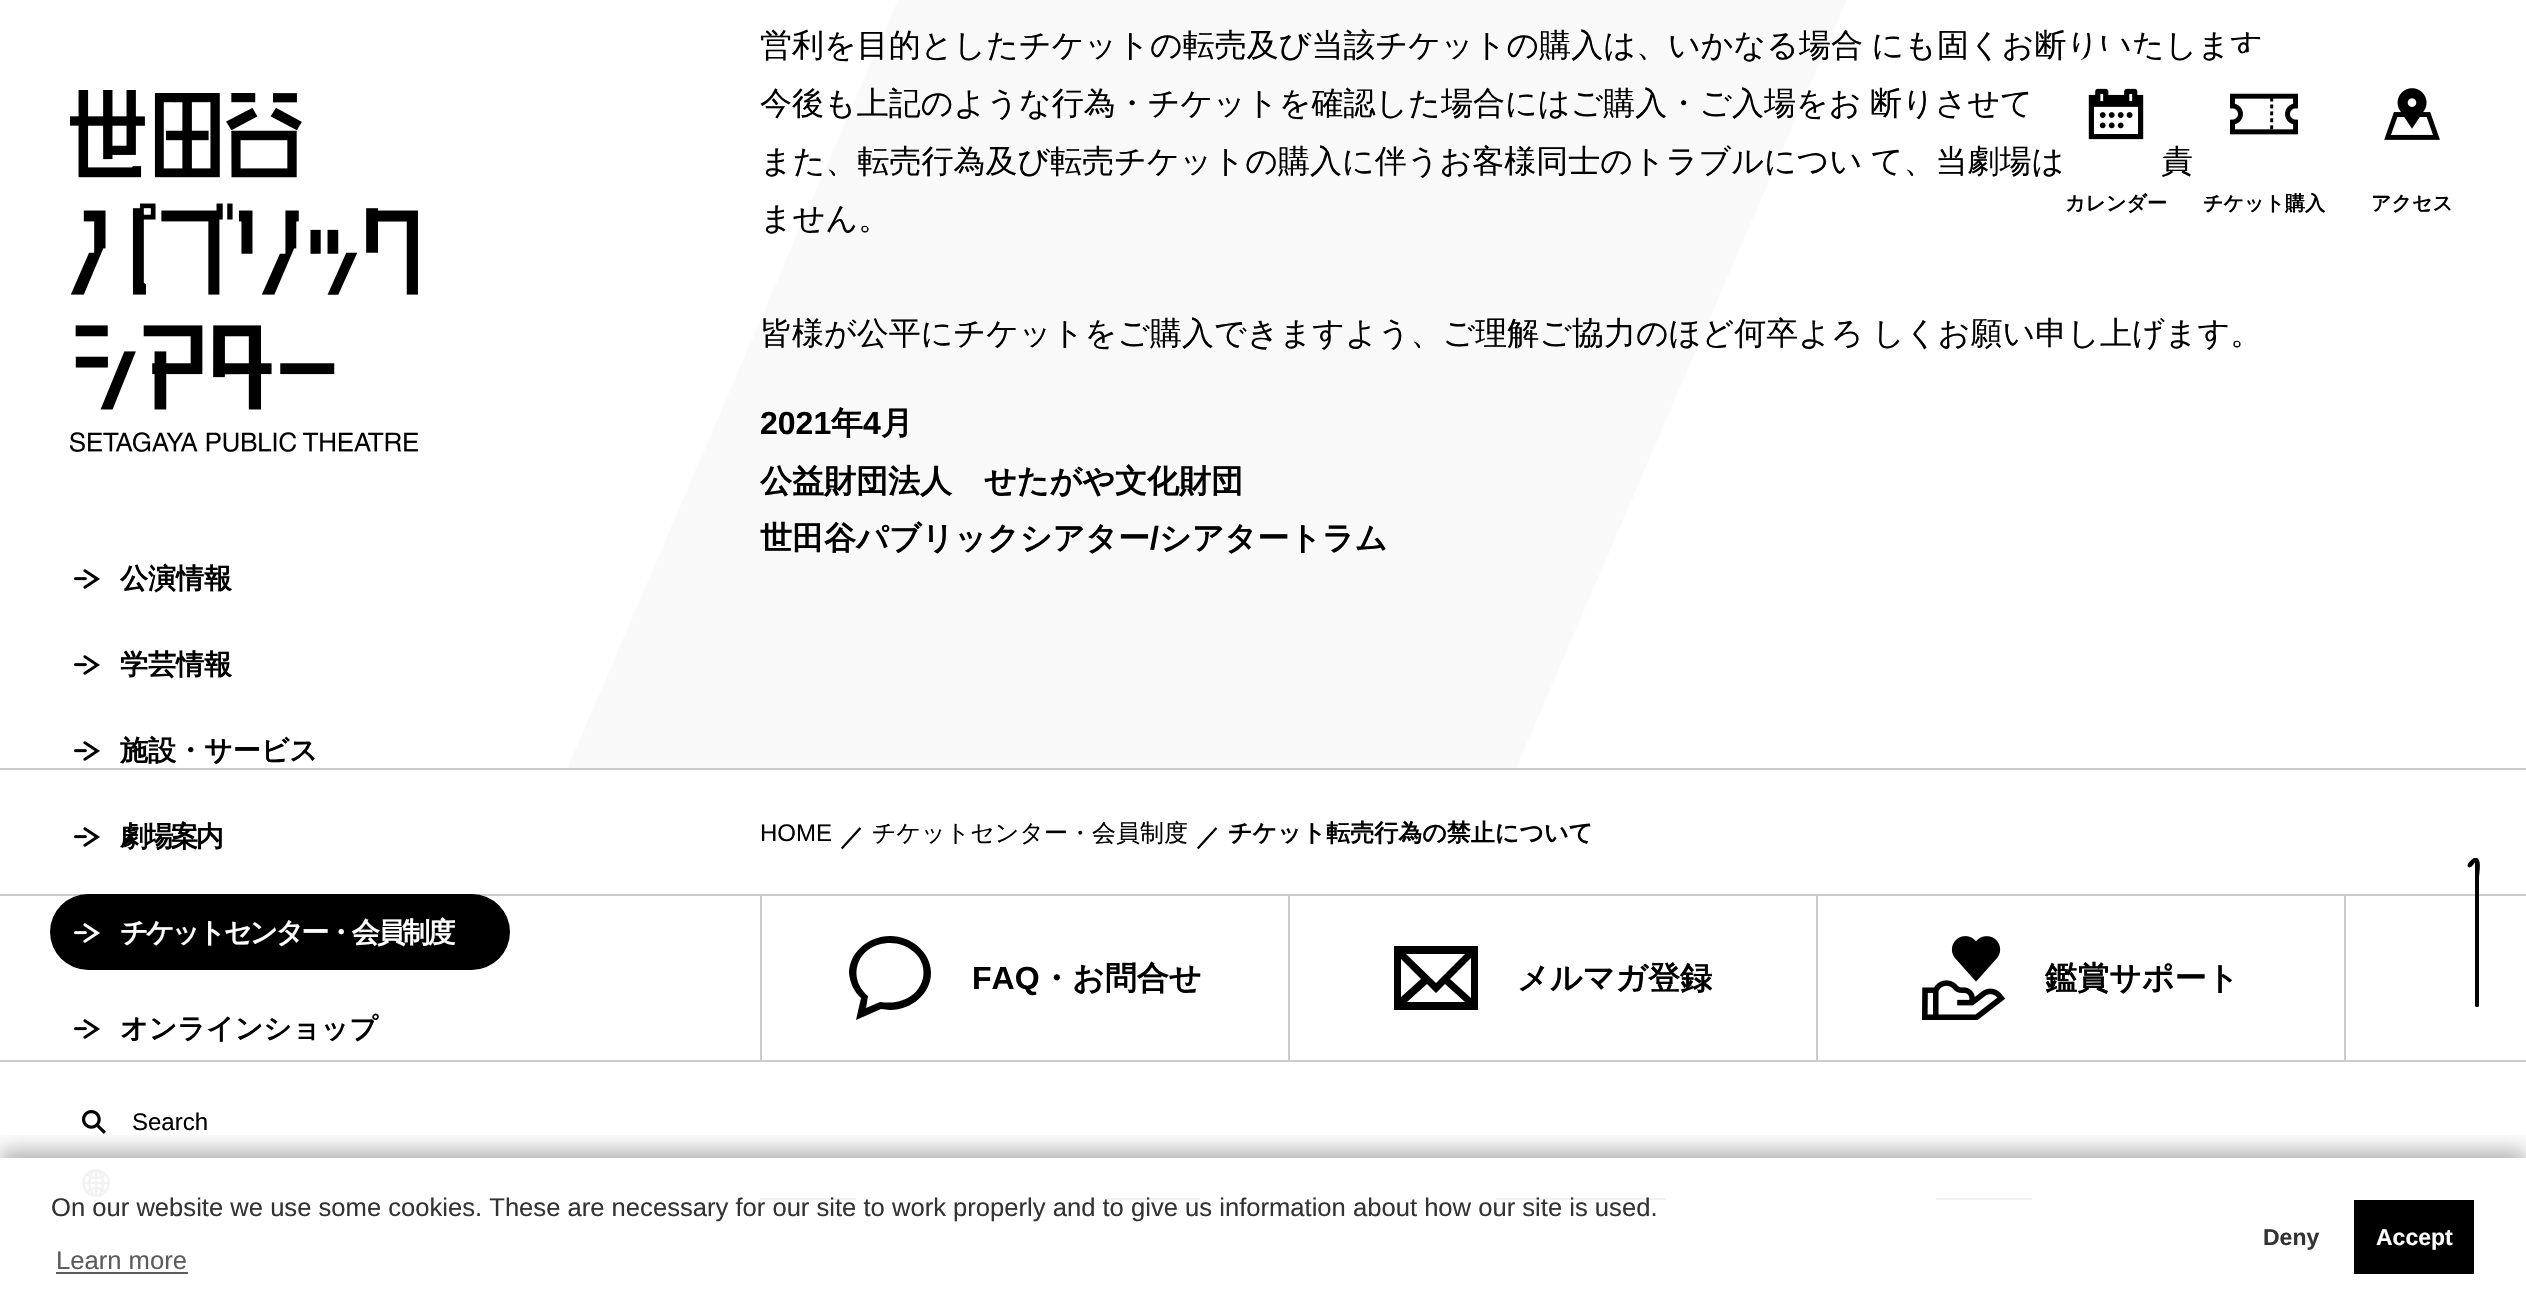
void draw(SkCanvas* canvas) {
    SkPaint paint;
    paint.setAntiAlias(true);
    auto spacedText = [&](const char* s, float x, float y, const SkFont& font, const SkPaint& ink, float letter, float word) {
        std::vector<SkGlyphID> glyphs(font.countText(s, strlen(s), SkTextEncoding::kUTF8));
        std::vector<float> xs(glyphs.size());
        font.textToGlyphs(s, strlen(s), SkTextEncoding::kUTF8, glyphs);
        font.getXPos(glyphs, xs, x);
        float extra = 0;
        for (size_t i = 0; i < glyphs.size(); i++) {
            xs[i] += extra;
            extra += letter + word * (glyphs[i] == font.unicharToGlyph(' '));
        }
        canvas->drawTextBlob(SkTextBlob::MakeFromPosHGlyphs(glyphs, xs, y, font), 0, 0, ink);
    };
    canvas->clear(0xFFFFFFFF);
    canvas->drawImageRect(SkImages::DeferredFromEncodedData(SkData::MakeFromFileName("img1.png")), SkRect::MakeXYWH(566, 0, 1280, 768), SkSamplingOptions());
    SkFont font1(fontMgr->matchFamilyStyle("WenQuanYi Zen Hei", SkFontStyle(500, SkFontStyle::kNormal_Width, SkFontStyle::kUpright_Slant)), 32);
    font1.setSubpixel(true);
    paint.setColor(0xFF000000);
    spacedText("営利を目的としたチケットの転売及び当該チケットの購入は、いかなる場合 にも固くお断りいたします", 760, 56, font1, paint, 0, -1);
    spacedText("今後も上記のような行為・チケットを確認した場合にはご購入・ご入場をお 断りさせて", 760, 114, font1, paint, 0, -1);
    spacedText("また、転売行為及び転売チケットの購入に伴うお客様同士のトラブルについ て、当劇場は", 760, 172, font1, paint, 0, -1);
    spacedText("責", 2161, 172, font1, paint, 0, -1);
    canvas->drawString("ません。", 760, 229, font1, paint);
    spacedText("皆様が公平にチケットをご購入できますよう、ご理解ご協力のほど何卒よろ しくお願い申し上げます。", 760, 344, font1, paint, 0, -1);
    SkFont font2(fontMgr->matchFamilyStyle("Liberation Sans", SkFontStyle::Bold()), 32);
    font2.setSubpixel(true);
    canvas->drawString("2021", 760, 434, font2, paint);
    SkFont font3(fontMgr->matchFamilyStyle("WenQuanYi Zen Hei", SkFontStyle::Bold()), 32);
    font3.setSubpixel(true);
    canvas->drawString("年", 831, 434, font3, paint);
    canvas->drawString("4", 863, 434, font2, paint);
    canvas->drawString("月", 881, 434, font3, paint);
    canvas->drawString("公益財団法人　せたがや文化財団", 760, 492, font3, paint);
    canvas->drawString("世田谷パブリックシアター", 760, 549, font3, paint);
    canvas->drawString("/", 1150, 549, font2, paint);
    canvas->drawString("シアタートラム", 1159, 549, font3, paint);
    paint.setColor(0xFFFFFFFF);
    canvas->drawCircle(2116, 114, 64, paint);
    canvas->drawImageRect(SkImages::DeferredFromEncodedData(SkData::MakeFromFileName("img2.png")), SkRect::MakeXYWH(2088, 88, 56, 52), SkSamplingOptions());
    SkFont font4(fontMgr->matchFamilyStyle("WenQuanYi Zen Hei", SkFontStyle::Bold()), 20);
    font4.setSubpixel(true);
    paint.setColor(0xFF000000);
    canvas->drawString("カレンダー", 2065, 210, font4, paint);
    paint.setColor(0xFFFFFFFF);
    canvas->drawCircle(2264, 114, 64, paint);
    canvas->drawImageRect(SkImages::DeferredFromEncodedData(SkData::MakeFromFileName("img3.png")), SkRect::MakeXYWH(2230, 93, 68, 42), SkSamplingOptions());
    paint.setColor(0xFF000000);
    canvas->drawString("チケット購入", 2203, 210, font4, paint);
    canvas->drawImageRect(SkImages::DeferredFromEncodedData(SkData::MakeFromFileName("img4.png")), SkRect::MakeXYWH(2384, 88, 56, 52), SkSamplingOptions());
    canvas->drawString("アクセス", 2371, 210, font4, paint);
    canvas->drawImageRect(SkImages::DeferredFromEncodedData(SkData::MakeFromFileName("img5.png")), SkRect::MakeXYWH(70, 90, 348, 362), SkSamplingOptions());
    canvas->drawImageRect(SkImages::DeferredFromEncodedData(SkData::MakeFromFileName("img6.png")), SkRect::MakeXYWH(74, 569, 26, 20), SkSamplingOptions());
    SkFont font5(fontMgr->matchFamilyStyle("WenQuanYi Zen Hei", SkFontStyle::Bold()), 28);
    font5.setSubpixel(true);
    canvas->drawString("公演情報", 120, 588, font5, paint);
    canvas->drawImageRect(SkImages::DeferredFromEncodedData(SkData::MakeFromFileName("img6.png")), SkRect::MakeXYWH(74, 655, 26, 20), SkSamplingOptions());
    canvas->drawString("学芸情報", 120, 674, font5, paint);
    canvas->drawImageRect(SkImages::DeferredFromEncodedData(SkData::MakeFromFileName("img6.png")), SkRect::MakeXYWH(74, 741, 26, 20), SkSamplingOptions());
    canvas->drawString("施設・サービス", 120, 760, font5, paint);
    canvas->drawImageRect(SkImages::DeferredFromEncodedData(SkData::MakeFromFileName("img6.png")), SkRect::MakeXYWH(74, 827, 26, 20), SkSamplingOptions());
    spacedText("劇場案内", 120, 846, font5, paint, -2.75f, 0);
    paint.setColor(0xFFCCCCCC);
    canvas->drawRect(SkRect::MakeXYWH(0, 894, 2526, 2), paint);
    paint.setColor(0xFF000000);
    canvas->drawRoundRect(SkRect::MakeXYWH(50, 894, 460, 76), 38, 38, paint);
    canvas->drawImageRect(SkImages::DeferredFromEncodedData(SkData::MakeFromFileName("img7.png")), SkRect::MakeXYWH(74, 923, 26, 20), SkSamplingOptions());
    paint.setColor(0xFFFFFFFF);
    spacedText("チケットセンター・会員制度", 120, 942, font5, paint, -2.75f, 0);
    canvas->drawImageRect(SkImages::DeferredFromEncodedData(SkData::MakeFromFileName("img6.png")), SkRect::MakeXYWH(74, 1019, 26, 20), SkSamplingOptions());
    paint.setColor(0xFF000000);
    canvas->drawString("オンラインショップ", 120, 1038, font5, paint);
    canvas->drawImageRect(SkImages::DeferredFromEncodedData(SkData::MakeFromFileName("img8.png")), SkRect::MakeXYWH(82, 1110, 24, 24), SkSamplingOptions());
    SkFont font6(fontMgr->matchFamilyStyle("Liberation Sans", SkFontStyle::Normal()), 24);
    font6.setSubpixel(true);
    canvas->drawString("Search", 132, 1130, font6, paint);
    canvas->drawImageRect(SkImages::DeferredFromEncodedData(SkData::MakeFromFileName("img9.png")), SkRect::MakeXYWH(82, 1169, 28, 28), SkSamplingOptions());
    paint.setColor(0xFFCCCCCC);
    canvas->drawRect(SkRect::MakeXYWH(0, 768, 2526, 2), paint);
    paint.setColor(0xFF000000);
    canvas->drawString("HOME", 760, 841, font6, paint);
    SkFont font7(fontMgr->matchFamilyStyle("WenQuanYi Zen Hei", SkFontStyle::Bold()), 24);
    font7.setSubpixel(true);
    canvas->drawString("／", 840, 845, font7, paint);
    SkFont font8(fontMgr->matchFamilyStyle("WenQuanYi Zen Hei", SkFontStyle(500, SkFontStyle::kNormal_Width, SkFontStyle::kUpright_Slant)), 24);
    font8.setSubpixel(true);
    canvas->drawString("チケットセンター・会員制度", 872, 841, font8, paint);
    canvas->drawString("／", 1196, 845, font7, paint);
    canvas->drawString("チケット転売行為の禁止について", 1228, 841, font7, paint);
    paint.setColor(0xFFCCCCCC);
    canvas->drawRect(SkRect::MakeXYWH(0, 1060, 2526, 2), paint);
    canvas->drawRect(SkRect::MakeXYWH(2344, 896, 2, 164), paint);
    canvas->drawRect(SkRect::MakeXYWH(760, 896, 2, 164), paint);
    paint.setColor(0xFF000000);
    canvas->drawPath(SkPathBuilder().moveTo(856, 1020).lineTo(861, 998).cubicTo(854, 992, 850, 983, 849, 973).cubicTo(849, 953, 868, 936, 890, 936).cubicTo(912, 936, 931, 953, 931, 973).cubicTo(931, 993, 912, 1010, 890, 1010).lineTo(881, 1009).close().moveTo(890, 943).cubicTo(859, 943, 845, 976, 868, 996).lineTo(866, 1008).lineTo(880, 1002).cubicTo(888, 1003, 895, 1003, 903, 1000).cubicTo(924, 993, 931, 967, 914, 952).cubicTo(907, 946, 899, 943, 890, 943).close().detach(), paint);
    canvas->drawString("FAQ", 972, 989, font2, paint);
    canvas->drawString("・お問合せ", 1040, 989, font3, paint);
    paint.setColor(0xFFCCCCCC);
    canvas->drawRect(SkRect::MakeXYWH(1288, 896, 2, 164), paint);
    paint.setColor(0xFF000000);
    canvas->drawPath(SkPathBuilder().moveTo(1394, 946).lineTo(1394, 1010).lineTo(1478, 1010).lineTo(1478, 946).close().moveTo(1421, 979).lineTo(1401, 997).lineTo(1401, 959).close().moveTo(1406, 954).lineTo(1465, 954).lineTo(1436, 983).close().moveTo(1427, 984).lineTo(1436, 993).lineTo(1445, 984).lineTo(1465, 1002).lineTo(1407, 1002).close().moveTo(1450, 979).lineTo(1471, 958).lineTo(1471, 998).close().detach(), paint);
    canvas->drawString("メルマガ登録", 1517, 989, font3, paint);
    paint.setColor(0xFFCCCCCC);
    canvas->drawRect(SkRect::MakeXYWH(1816, 896, 2, 164), paint);
    canvas->drawImageRect(SkImages::DeferredFromEncodedData(SkData::MakeFromFileName("img10.png")), SkRect::MakeXYWH(1922, 936, 84, 84), SkSamplingOptions());
    paint.setColor(0xFF000000);
    canvas->drawString("鑑賞サポート", 2045, 989, font3, paint);
    canvas->drawRect(SkRect::MakeXYWH(760, 1198, 96, 2), paint);
    canvas->drawRect(SkRect::MakeXYWH(1104, 1198, 96, 2), paint);
    canvas->drawRect(SkRect::MakeXYWH(1496, 1198, 170, 2), paint);
    canvas->drawRect(SkRect::MakeXYWH(1936, 1198, 96, 2), paint);
    canvas->drawPath(SkPathBuilder().moveTo(2477, 1007).cubicTo(2476, 1007, 2475, 1007, 2475, 1005).lineTo(2475, 862).cubicTo(2474, 864, 2471, 869, 2468, 867).cubicTo(2466, 864, 2472, 859, 2474, 858).lineTo(2477, 858).cubicTo(2481, 860, 2480, 868, 2479, 877).lineTo(2479, 885).lineTo(2479, 1005).cubicTo(2479, 1007, 2478, 1007, 2477, 1007).close().detach(), paint);
    canvas->save();
    canvas->clipRect(SkRect::MakeXYWH(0, 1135, 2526, 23));
    paint.setColor(0x4D000000);
    paint.setMaskFilter(SkMaskFilter::MakeBlur(kNormal_SkBlurStyle, 10));
    canvas->drawRect(SkRect::MakeXYWH(0, 1150, 2526, 158), paint);
    paint.setMaskFilter(nullptr);
    canvas->restore();
    paint.setColor(0xF2FFFFFF);
    canvas->drawRect(SkRect::MakeXYWH(82, 1169, 1950, 31), paint);
    SkFont font9(fontMgr->matchFamilyStyle("Liberation Sans", SkFontStyle::Normal()), 25.6f);
    font9.setSubpixel(true);
    paint.setColor(0xFF333333);
    canvas->drawString("On our website we use some cookies. These are necessary for our site to work properly and to give us information about how our site is used.", 51, 1216, font9, paint);
    paint.setColor(0xFF5C5C5C);
    canvas->drawString("Learn more", 56, 1269, font9, paint);
    canvas->drawRect(SkRect::MakeXYWH(56, 1272, 132, 2), paint);
    SkFont font10(fontMgr->matchFamilyStyle("Liberation Sans", SkFontStyle::Bold()), 23);
    font10.setSubpixel(true);
    paint.setColor(0xFF333333);
    canvas->drawString("Deny", 2263, 1245, font10, paint);
    paint.setColor(0xFF000000);
    canvas->drawRect(SkRect::MakeXYWH(2354, 1200, 120, 74), paint);
    paint.setColor(0xFFFFFFFF);
    canvas->drawString("Accept", 2376, 1245, font10, paint);
}
